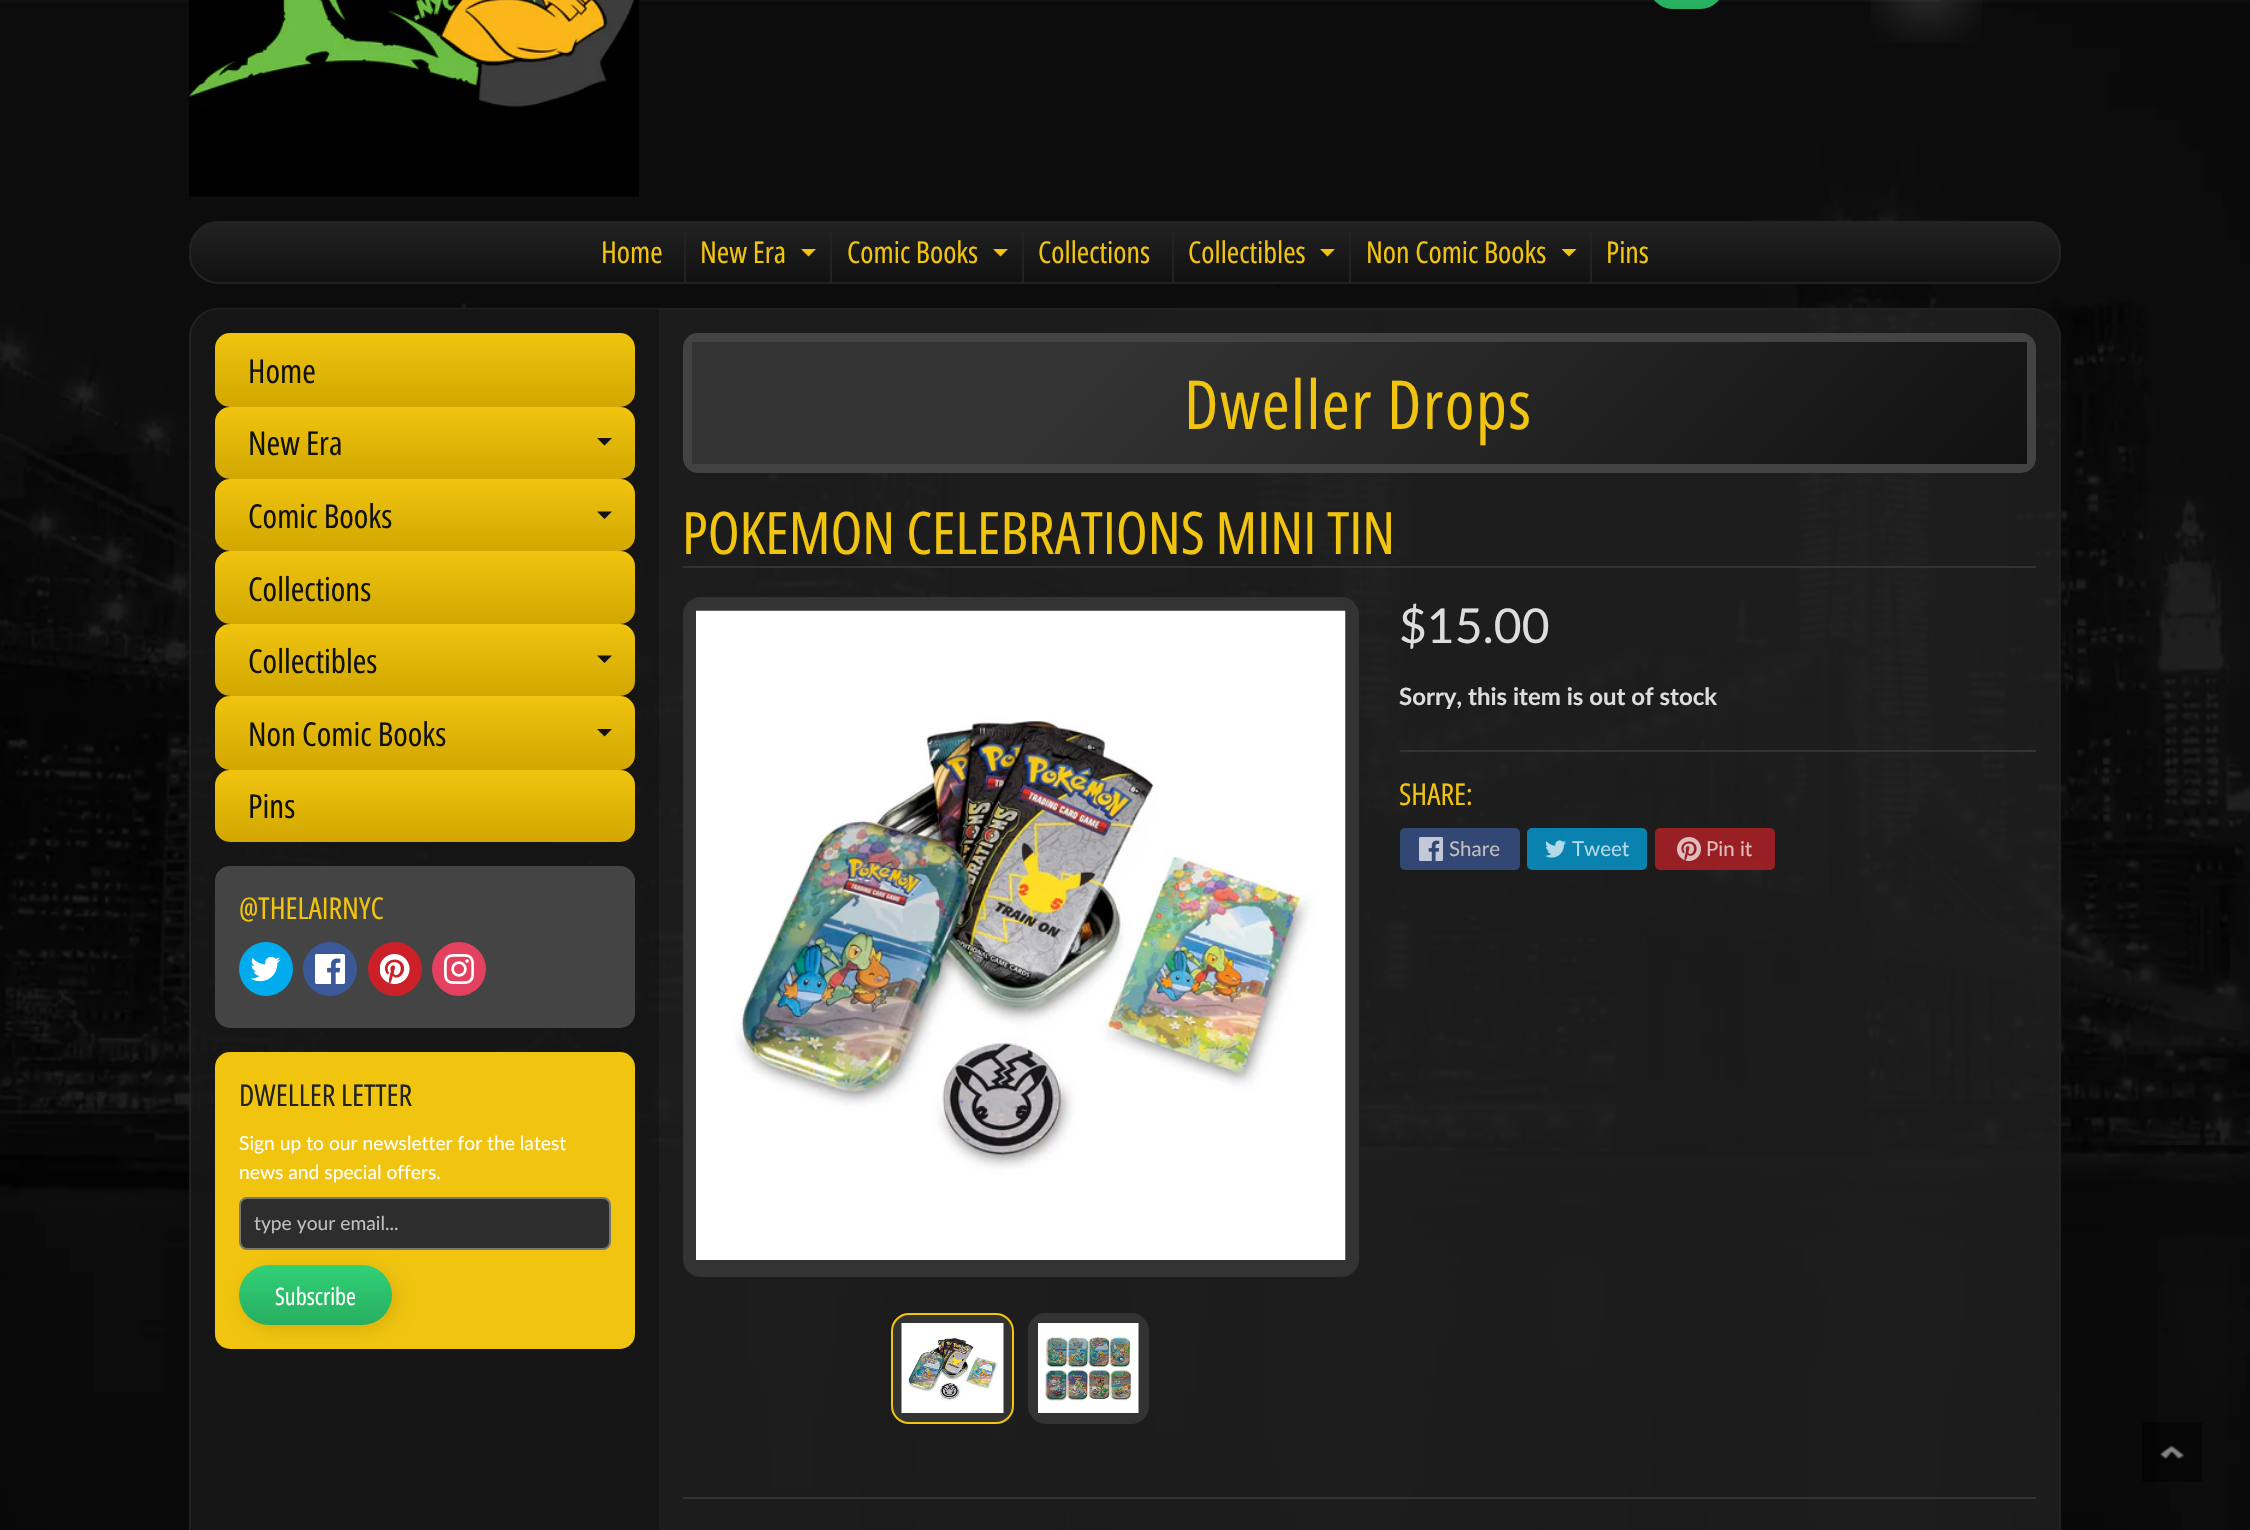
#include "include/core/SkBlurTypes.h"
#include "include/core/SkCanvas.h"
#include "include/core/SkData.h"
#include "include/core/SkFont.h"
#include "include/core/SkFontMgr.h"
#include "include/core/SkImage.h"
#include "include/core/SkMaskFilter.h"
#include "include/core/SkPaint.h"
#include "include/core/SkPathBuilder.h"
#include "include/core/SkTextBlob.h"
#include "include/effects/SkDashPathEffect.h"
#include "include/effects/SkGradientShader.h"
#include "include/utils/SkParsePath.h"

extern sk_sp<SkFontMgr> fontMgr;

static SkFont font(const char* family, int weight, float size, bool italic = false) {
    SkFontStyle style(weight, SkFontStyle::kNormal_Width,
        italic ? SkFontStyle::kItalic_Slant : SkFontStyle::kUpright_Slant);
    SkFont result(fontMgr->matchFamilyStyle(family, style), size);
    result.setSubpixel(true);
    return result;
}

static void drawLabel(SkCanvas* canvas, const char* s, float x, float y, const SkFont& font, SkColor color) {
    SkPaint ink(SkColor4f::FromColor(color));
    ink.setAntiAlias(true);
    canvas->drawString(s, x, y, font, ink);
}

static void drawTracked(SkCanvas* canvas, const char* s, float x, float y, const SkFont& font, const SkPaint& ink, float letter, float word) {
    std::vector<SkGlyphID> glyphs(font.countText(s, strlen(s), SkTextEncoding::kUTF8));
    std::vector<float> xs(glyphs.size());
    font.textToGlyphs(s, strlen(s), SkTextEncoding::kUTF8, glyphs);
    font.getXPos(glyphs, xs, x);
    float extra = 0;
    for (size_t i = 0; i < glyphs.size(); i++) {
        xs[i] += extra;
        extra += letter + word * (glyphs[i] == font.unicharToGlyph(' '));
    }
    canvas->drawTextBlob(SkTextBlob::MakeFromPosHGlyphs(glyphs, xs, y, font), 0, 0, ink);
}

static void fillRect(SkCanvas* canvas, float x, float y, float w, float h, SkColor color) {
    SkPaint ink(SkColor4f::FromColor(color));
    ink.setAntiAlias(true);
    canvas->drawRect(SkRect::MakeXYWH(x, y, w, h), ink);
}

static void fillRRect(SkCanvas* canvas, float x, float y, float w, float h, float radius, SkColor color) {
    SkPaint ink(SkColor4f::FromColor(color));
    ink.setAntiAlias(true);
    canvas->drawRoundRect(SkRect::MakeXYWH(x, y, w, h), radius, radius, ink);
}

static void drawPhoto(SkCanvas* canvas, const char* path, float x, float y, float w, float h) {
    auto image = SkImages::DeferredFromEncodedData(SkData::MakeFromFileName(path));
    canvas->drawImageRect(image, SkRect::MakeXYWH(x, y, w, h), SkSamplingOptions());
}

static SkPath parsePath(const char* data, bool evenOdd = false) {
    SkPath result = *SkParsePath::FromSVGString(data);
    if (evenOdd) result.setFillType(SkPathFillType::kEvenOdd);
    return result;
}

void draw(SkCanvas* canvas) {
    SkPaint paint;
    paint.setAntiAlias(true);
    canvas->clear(0xFFFFFFFF);
    drawPhoto(canvas, "assets/img1.png", 0, 0, 2250, 1530);
    drawPhoto(canvas, "assets/img2.png", 189, 0, 450, 197);
    {
        const SkColor colors[] = {0xFF32D177, 0xFF27AE60};
        const float stops[] = {0, 1};
        const SkPoint ends[] = {{1686, -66}, {1686, 9}};
        paint.setShader(SkGradientShader::MakeLinear(ends, colors, stops, 2, SkTileMode::kClamp));
        paint.setAlpha(255);
    }
    canvas->drawRoundRect(SkRect::MakeXYWH(1649, -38, 75, 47), 37.5f, 37.5f, paint);
    drawPhoto(canvas, "assets/img3.png", 1871, 0, 111, 43);
    canvas->save();
    canvas->clipPath(parsePath("M219 221H2031C2047.5 221 2061 234.5 2061 251V254C2061 270.5 2047.5 284 2031 284H219C202.5 284 189 270.5 189 254V251C189 234.5 202.5 221 219 221Z"), true);
    {
        const SkColor colors[] = {0xFF222222, 0xFF111111};
        const float stops[] = {0, 1};
        const SkPoint ends[] = {{1125, 222}, {1125, 282}};
        paint.setShader(SkGradientShader::MakeLinear(ends, colors, stops, 2, SkTileMode::kClamp));
        paint.setAlpha(255);
    }
    canvas->drawRect(SkRect::MakeXYWH(189, 222, 1872, 60), paint);
    canvas->restore();
    paint.setStroke(true);
    paint.setStrokeWidth(2);
    paint.setShader(nullptr);
    paint.setColor(0xFF222222);
    canvas->drawRoundRect(SkRect::MakeXYWH(190, 222, 1870, 61), 29, 29, paint);
    SkFont font1 = font("Open Sans Condensed", 400, 30);
    drawLabel(canvas, "Home", 601, 263, font1, 0xFFF1C40F);
    fillRect(canvas, 684, 231, 2, 51, 0xFF222222);
    drawLabel(canvas, "New Era", 700, 263, font1, 0xFFF1C40F);
    paint.setStroke(false);
    paint.setColor(0xFFF1C40F);
    canvas->drawPath(parsePath("M801 249H816L808.5 256.5Z"), paint);
    fillRect(canvas, 830, 231, 2, 51, 0xFF222222);
    drawLabel(canvas, "Comic Books", 847, 263, font1, 0xFFF1C40F);
    canvas->drawPath(parsePath("M993 249H1008L1000.5 256.5Z"), paint);
    fillRect(canvas, 1022, 231, 2, 51, 0xFF222222);
    drawLabel(canvas, "Collections", 1038, 263, font1, 0xFFF1C40F);
    fillRect(canvas, 1172, 231, 2, 51, 0xFF222222);
    drawLabel(canvas, "Collectibles", 1188, 263, font1, 0xFFF1C40F);
    canvas->drawPath(parsePath("M1320 249H1335L1327.5 256.5Z"), paint);
    fillRect(canvas, 1349, 231, 2, 51, 0xFF222222);
    drawLabel(canvas, "Non Comic Books", 1366, 263, font1, 0xFFF1C40F);
    canvas->drawPath(parsePath("M1561.5 249H1576.5L1569 256.5Z"), paint);
    fillRect(canvas, 1590, 231, 2, 51, 0xFF222222);
    drawLabel(canvas, "Pins", 1606, 263, font1, 0xFFF1C40F);
    fillRRect(canvas, 189, 308, 1872, 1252, 30, 0xBF222222);
    paint.setStroke(true);
    paint.setColor(0xB3222222);
    canvas->drawRoundRect(SkRect::MakeXYWH(190, 309, 1870, 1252), 29, 29, paint);
    paint.setStroke(false);
    paint.setColor(0x40000000);
    canvas->drawPath(parsePath("M220 309H659V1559H220C204 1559 191 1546 191 1530V338C191 322 204 309 220 309Z"), paint);
    {
        const SkColor colors[] = {0xFFF1C40F, 0xFFD1A701};
        const float stops[] = {0, 1};
        const SkPoint ends[] = {{425, 333}, {425, 407}};
        paint.setShader(SkGradientShader::MakeLinear(ends, colors, stops, 2, SkTileMode::kClamp));
        paint.setAlpha(255);
    }
    canvas->drawRoundRect(SkRect::MakeXYWH(215, 333, 420, 74), 15, 15, paint);
    SkFont font2 = font("Open Sans Condensed", 400, 33);
    drawLabel(canvas, "Home", 248, 383, font2, 0xFF111111);
    {
        const SkColor colors[] = {0xFFF1C40F, 0xFFD1A701};
        const float stops[] = {0, 1};
        const SkPoint ends[] = {{425, 407}, {425, 479}};
        paint.setShader(SkGradientShader::MakeLinear(ends, colors, stops, 2, SkTileMode::kClamp));
        paint.setAlpha(255);
    }
    canvas->drawRoundRect(SkRect::MakeXYWH(215, 407, 420, 72), 15, 15, paint);
    drawLabel(canvas, "New Era", 248, 455, font2, 0xFF111111);
    paint.setShader(nullptr);
    paint.setColor(0xFF111111);
    canvas->drawPath(parsePath("M597 438H612L604.5 445.5Z"), paint);
    {
        const SkColor colors[] = {0xFFF1C40F, 0xFFD1A701};
        const float stops[] = {0, 1};
        const SkPoint ends[] = {{425, 479}, {425, 551}};
        paint.setShader(SkGradientShader::MakeLinear(ends, colors, stops, 2, SkTileMode::kClamp));
        paint.setAlpha(255);
    }
    canvas->drawRoundRect(SkRect::MakeXYWH(215, 479, 420, 72), 15, 15, paint);
    drawLabel(canvas, "Comic Books", 248, 528, font2, 0xFF111111);
    paint.setShader(nullptr);
    paint.setColor(0xFF111111);
    canvas->drawPath(parsePath("M597 511.5H612L604.5 519Z"), paint);
    {
        const SkColor colors[] = {0xFFF1C40F, 0xFFD1A701};
        const float stops[] = {0, 1};
        const SkPoint ends[] = {{425, 551}, {425, 624}};
        paint.setShader(SkGradientShader::MakeLinear(ends, colors, stops, 2, SkTileMode::kClamp));
        paint.setAlpha(255);
    }
    canvas->drawRoundRect(SkRect::MakeXYWH(215, 551, 420, 73), 15, 15, paint);
    drawLabel(canvas, "Collections", 248, 601, font2, 0xFF111111);
    {
        const SkColor colors[] = {0xFFF1C40F, 0xFFD1A701};
        const float stops[] = {0, 1};
        const SkPoint ends[] = {{425, 624}, {425, 696}};
        paint.setShader(SkGradientShader::MakeLinear(ends, colors, stops, 2, SkTileMode::kClamp));
        paint.setAlpha(255);
    }
    canvas->drawRoundRect(SkRect::MakeXYWH(215, 624, 420, 72), 15, 15, paint);
    drawLabel(canvas, "Collectibles", 248, 673, font2, 0xFF111111);
    paint.setShader(nullptr);
    paint.setColor(0xFF111111);
    canvas->drawPath(parsePath("M597 655.5H612L604.5 663Z"), paint);
    {
        const SkColor colors[] = {0xFFF1C40F, 0xFFD1A701};
        const float stops[] = {0, 1};
        const SkPoint ends[] = {{425, 696}, {425, 770}};
        paint.setShader(SkGradientShader::MakeLinear(ends, colors, stops, 2, SkTileMode::kClamp));
        paint.setAlpha(255);
    }
    canvas->drawRoundRect(SkRect::MakeXYWH(215, 696, 420, 74), 15, 15, paint);
    drawLabel(canvas, "Non Comic Books", 248, 746, font2, 0xFF111111);
    paint.setShader(nullptr);
    paint.setColor(0xFF111111);
    canvas->drawPath(parsePath("M597 729H612L604.5 736.5Z"), paint);
    {
        const SkColor colors[] = {0xFFF1C40F, 0xFFD1A701};
        const float stops[] = {0, 1};
        const SkPoint ends[] = {{425, 770}, {425, 842}};
        paint.setShader(SkGradientShader::MakeLinear(ends, colors, stops, 2, SkTileMode::kClamp));
        paint.setAlpha(255);
    }
    canvas->drawRoundRect(SkRect::MakeXYWH(215, 770, 420, 72), 15, 15, paint);
    drawLabel(canvas, "Pins", 248, 818, font2, 0xFF111111);
    fillRRect(canvas, 215, 866, 420, 162, 15, 0xFF444444);
    drawLabel(canvas, "@THELAIRNYC", 239, 919, font1, 0xFFF1C40F);
    paint.setShader(nullptr);
    paint.setColor(0xFF00ACED);
    canvas->drawCircle(266, 969, 27, paint);
    drawPhoto(canvas, "assets/img4.png", 251, 956, 30, 26);
    paint.setColor(0xFF3B5998);
    canvas->drawCircle(330, 969, 27, paint);
    drawPhoto(canvas, "assets/img5.png", 315, 954, 30, 30);
    paint.setColor(0xFFCB2027);
    canvas->drawCircle(395, 969, 27, paint);
    drawPhoto(canvas, "assets/img6.png", 380, 954, 30, 30);
    paint.setColor(0xFFE4405F);
    canvas->drawCircle(459, 969, 27, paint);
    drawPhoto(canvas, "assets/img7.png", 444, 954, 30, 30);
    fillRRect(canvas, 215, 1052, 420, 297, 15, 0xFFF1C40F);
    drawLabel(canvas, "DWELLER LETTER", 239, 1106, font1, 0xFF222222);
    SkFont font3 = font("Lato", 400, 19.25f);
    drawLabel(canvas, "Sign up to our newsletter for the latest", 239, 1150, font3, 0xFFFFFFFF);
    drawLabel(canvas, "news and special offers.", 239, 1179, font3, 0xFFFFFFFF);
    paint.setColor(0xFF2D2D2D);
    canvas->drawRoundRect(SkRect::MakeXYWH(240, 1198, 370, 51), 7, 7, paint);
    paint.setStroke(true);
    paint.setColor(0xFF767676);
    canvas->drawRoundRect(SkRect::MakeXYWH(240, 1198, 370, 51), 7, 7, paint);
    drawLabel(canvas, "type your email...", 254, 1230, font3, 0xFFC0BFBF);
    paint.setStroke(false);
    paint.setColor(0x1A000000);
    paint.setMaskFilter(SkMaskFilter::MakeBlur(kNormal_SkBlurStyle, 9));
    canvas->drawRoundRect(SkRect::MakeXYWH(243, 1269, 153, 60), 30, 30, paint);
    paint.setMaskFilter(nullptr);
    {
        const SkColor colors[] = {0xFF32D177, 0xFF27AE60};
        const float stops[] = {0, 1};
        const SkPoint ends[] = {{315, 1265}, {315, 1325}};
        paint.setShader(SkGradientShader::MakeLinear(ends, colors, stops, 2, SkTileMode::kClamp));
        paint.setAlpha(255);
    }
    canvas->drawRoundRect(SkRect::MakeXYWH(239, 1265, 153, 60), 30, 30, paint);
    SkFont font4 = font("Open Sans Condensed", 400, 24);
    drawLabel(canvas, "Subscribe", 275, 1305, font4, 0xFFFFFFFF);
    fillRRect(canvas, 683, 333, 1353, 140, 15, 0xFF434343);
    {
        const SkColor colors[] = {0xFF333333, 0xFF111111};
        const float stops[] = {0.3f, 1};
        const SkPoint ends[] = {{995, 39}, {1723, 767}};
        paint.setShader(SkGradientShader::MakeLinear(ends, colors, stops, 2, SkTileMode::kClamp));
        paint.setAlpha(255);
    }
    canvas->drawRect(SkRect::MakeXYWH(692, 342, 1335, 122), paint);
    SkFont font5 = font("Open Sans Condensed", 400, 67.5f);
    paint.setShader(nullptr);
    paint.setColor(0xFFF1C40F);
    drawTracked(canvas, "Dweller Drops", 1184, 429, font5, paint, 1.5f, 0);
    fillRect(canvas, 683, 566, 1353, 2, 0xFF333333);
    SkFont font6 = font("Open Sans Condensed", 400, 58.6f);
    drawLabel(canvas, "POKEMON CELEBRATIONS MINI TIN", 682, 554, font6, 0xFFF1C40F);
    fillRRect(canvas, 683, 597, 676, 680, 18, 0xFF333333);
    drawPhoto(canvas, "assets/img8.png", 696, 610, 650, 650);
    paint.setColor(0xFF333333);
    canvas->drawRoundRect(SkRect::MakeXYWH(892, 1314, 121, 109), 17, 17, paint);
    paint.setStroke(true);
    paint.setColor(0xFFF1C40F);
    canvas->drawRoundRect(SkRect::MakeXYWH(892, 1314, 121, 109), 17, 17, paint);
    drawPhoto(canvas, "assets/img9.png", 901, 1323, 103, 90);
    paint.setStroke(false);
    paint.setColor(0xFF333333);
    canvas->drawRoundRect(SkRect::MakeXYWH(1029, 1314, 119, 109), 17, 17, paint);
    paint.setStroke(true);
    canvas->drawRoundRect(SkRect::MakeXYWH(1029, 1314, 119, 109), 17, 17, paint);
    drawPhoto(canvas, "assets/img10.png", 1038, 1323, 101, 90);
    SkFont font7 = font("Lato", 400, 48);
    drawLabel(canvas, "$15.00", 1399, 643, font7, 0xFFDDDDDD);
    SkFont font8 = font("Lato", 700, 24);
    drawLabel(canvas, "Sorry, this item is out of stock", 1399, 705, font8, 0xFFDDDDDD);
    fillRect(canvas, 1400, 750, 636, 2, 0xFF333333);
    drawLabel(canvas, "SHARE:", 1399, 805, font1, 0xFFF1C40F);
    fillRRect(canvas, 1400, 828, 120, 42, 5, 0xB33B5998);
    drawPhoto(canvas, "assets/img11.png", 1419, 837, 24, 24);
    SkFont font9 = font("Lato", 400, 20.5f);
    drawLabel(canvas, "Share", 1449, 856, font9, 0xFFC0BFBF);
    fillRRect(canvas, 1527, 828, 120, 42, 5, 0xB300ACED);
    drawPhoto(canvas, "assets/img12.png", 1545, 840, 21, 18);
    drawLabel(canvas, "Tweet", 1572, 856, font9, 0xFFB5D9E7);
    fillRRect(canvas, 1655, 828, 120, 42, 5, 0xB3CC2127);
    drawPhoto(canvas, "assets/img13.png", 1677, 837, 24, 24);
    drawLabel(canvas, "Pin it", 1706, 856, font9, 0xFFE0BCBD);
    fillRect(canvas, 683, 1497, 1353, 2, 0xFF333333);
    drawPhoto(canvas, "assets/img14.png", 2142, 1422, 60, 60);
}
